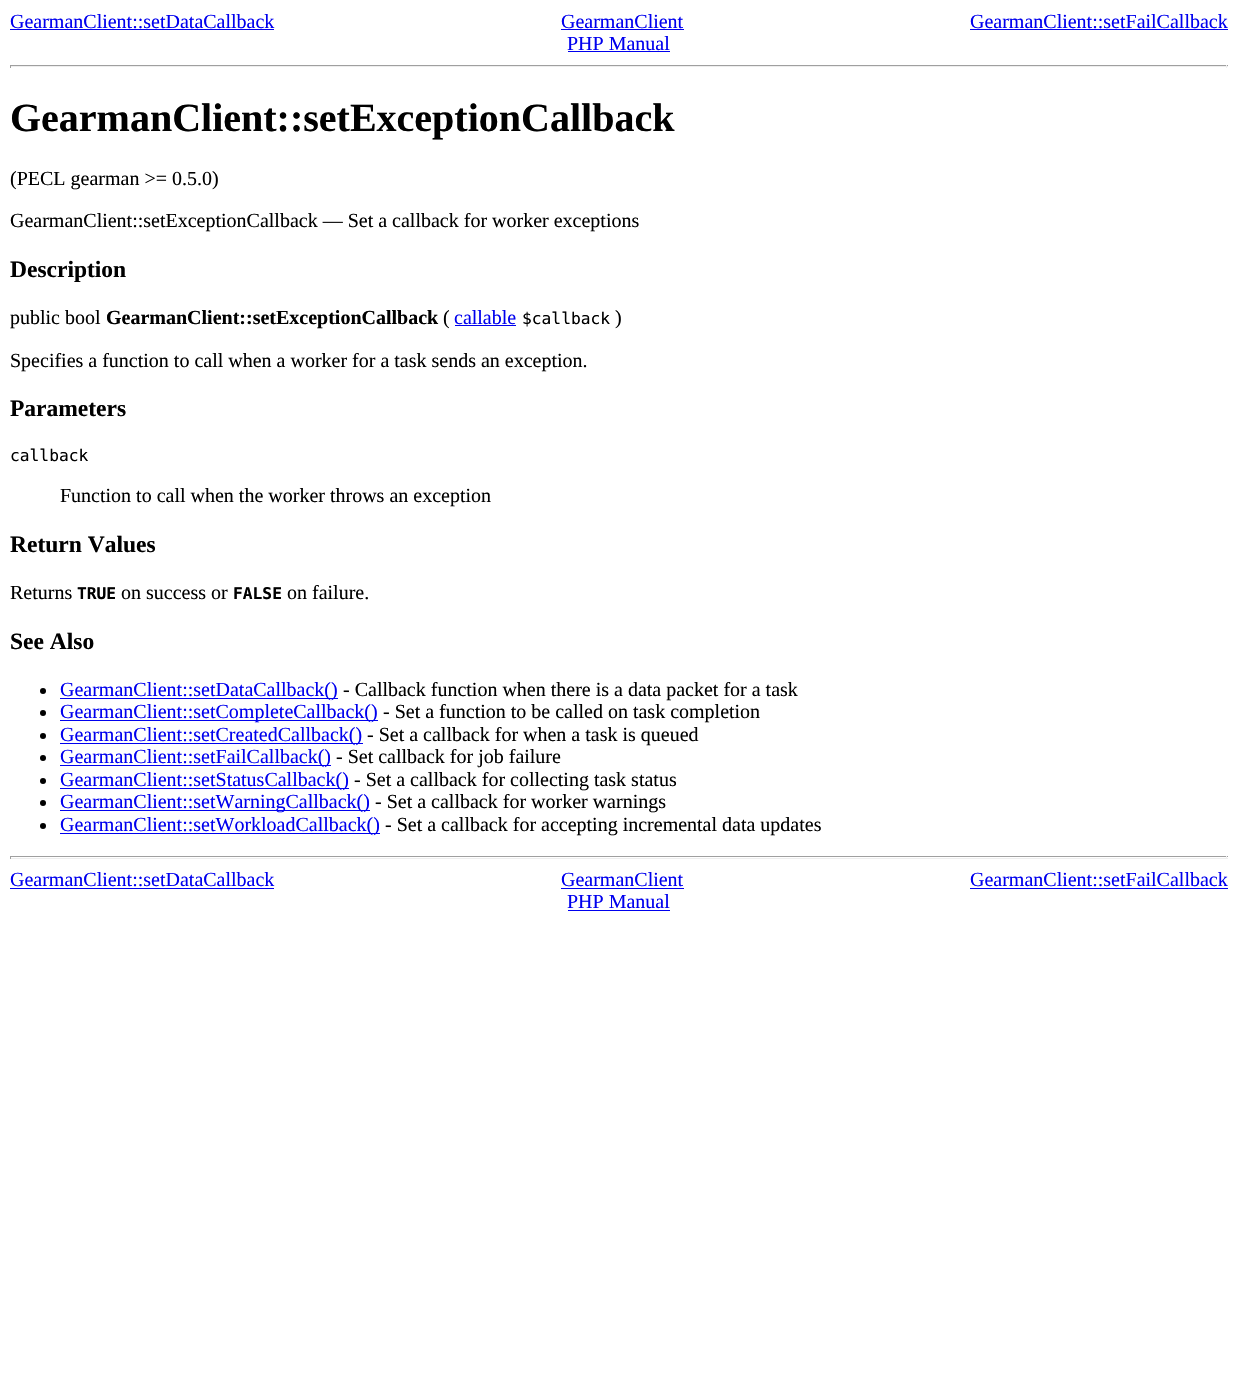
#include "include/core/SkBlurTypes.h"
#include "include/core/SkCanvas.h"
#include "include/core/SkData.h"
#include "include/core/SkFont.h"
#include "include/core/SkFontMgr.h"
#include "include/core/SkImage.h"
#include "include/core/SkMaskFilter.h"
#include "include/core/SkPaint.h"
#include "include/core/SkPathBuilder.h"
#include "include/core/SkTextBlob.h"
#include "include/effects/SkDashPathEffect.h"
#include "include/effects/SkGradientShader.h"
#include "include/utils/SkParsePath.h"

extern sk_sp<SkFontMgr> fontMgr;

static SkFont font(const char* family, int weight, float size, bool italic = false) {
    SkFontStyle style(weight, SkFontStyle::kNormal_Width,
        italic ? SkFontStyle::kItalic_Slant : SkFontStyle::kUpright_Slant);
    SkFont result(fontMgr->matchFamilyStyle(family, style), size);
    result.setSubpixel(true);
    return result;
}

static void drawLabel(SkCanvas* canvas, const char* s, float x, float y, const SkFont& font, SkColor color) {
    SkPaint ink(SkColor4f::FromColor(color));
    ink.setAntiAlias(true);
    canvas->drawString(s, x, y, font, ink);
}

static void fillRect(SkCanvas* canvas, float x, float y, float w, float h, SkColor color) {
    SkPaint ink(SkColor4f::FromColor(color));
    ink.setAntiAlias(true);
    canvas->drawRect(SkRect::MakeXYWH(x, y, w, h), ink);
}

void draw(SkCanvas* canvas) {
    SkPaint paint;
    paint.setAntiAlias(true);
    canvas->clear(0xFFFFFFFF);
    SkFont font1 = font("Liberation Serif", 400, 20);
    drawLabel(canvas, "GearmanClient::setDataCallback", 10, 28, font1, 0xFF0000EE);
    fillRect(canvas, 10, 29, 264, 1, 0xFF0000EE);
    drawLabel(canvas, "GearmanClient", 561, 28, font1, 0xFF0000EE);
    fillRect(canvas, 561, 29, 123, 1, 0xFF0000EE);
    drawLabel(canvas, "GearmanClient::setFailCallback", 970, 28, font1, 0xFF0000EE);
    fillRect(canvas, 970, 29, 258, 1, 0xFF0000EE);
    drawLabel(canvas, "PHP Manual", 567, 50, font1, 0xFF0000EE);
    fillRect(canvas, 568, 51, 102, 1, 0xFF0000EE);
    fillRect(canvas, 10, 65, 1218, 1, 0xFF9F9F9F);
    fillRect(canvas, 1226, 65, 1, 3, 0xFFEEEEEE);
    fillRect(canvas, 10, 66, 1218, 1, 0xFFEEEEEE);
    fillRect(canvas, 10, 65, 1, 3, 0xFF9F9F9F);
    SkFont font2 = font("Liberation Serif", 700, 40);
    drawLabel(canvas, "GearmanClient::setExceptionCallback", 10, 131, font2, 0xFF000000);
    drawLabel(canvas, "(PECL gearman >= 0.5.0)", 10, 185, font1, 0xFF000000);
    drawLabel(canvas, "GearmanClient::setExceptionCallback — Set a callback for worker exceptions", 10, 227, font1, 0xFF000000);
    SkFont font3 = font("Liberation Serif", 700, 23.5f);
    drawLabel(canvas, "Description", 10, 277, font3, 0xFF000000);
    drawLabel(canvas, "public bool", 10, 324, font1, 0xFF000000);
    SkFont font4 = font("Liberation Serif", 700, 20);
    drawLabel(canvas, "GearmanClient::setExceptionCallback", 106, 324, font4, 0xFF000000);
    drawLabel(canvas, "(", 443, 324, font1, 0xFF000000);
    drawLabel(canvas, "callable", 454, 324, font1, 0xFF0000EE);
    fillRect(canvas, 455, 325, 61, 1, 0xFF0000EE);
    SkFont font5 = font("DejaVu Sans Mono", 400, 16.25f);
    drawLabel(canvas, "$callback", 522, 324, font5, 0xFF000000);
    drawLabel(canvas, ")", 615, 324, font1, 0xFF000000);
    drawLabel(canvas, "Specifies a function to call when a worker for a task sends an exception.", 10, 367, font1, 0xFF000000);
    drawLabel(canvas, "Parameters", 10, 416, font3, 0xFF000000);
    drawLabel(canvas, "callback", 10, 461, font5, 0xFF000000);
    drawLabel(canvas, "Function to call when the worker throws an exception", 60, 502, font1, 0xFF000000);
    drawLabel(canvas, "Return Values", 10, 552, font3, 0xFF000000);
    drawLabel(canvas, "Returns", 10, 599, font1, 0xFF000000);
    SkFont font6 = font("DejaVu Sans Mono", 700, 16.25f);
    drawLabel(canvas, "TRUE", 77, 599, font6, 0xFF000000);
    drawLabel(canvas, "on success or", 121, 599, font1, 0xFF000000);
    drawLabel(canvas, "FALSE", 233, 599, font6, 0xFF000000);
    drawLabel(canvas, "on failure.", 287, 599, font1, 0xFF000000);
    drawLabel(canvas, "See Also", 10, 649, font3, 0xFF000000);
    paint.setColor(0xFF000000);
    canvas->drawCircle(43, 691, 3, paint);
    fillRect(canvas, 60, 698, 278, 1, 0xFF0000EE);
    drawLabel(canvas, "GearmanClient::setDataCallback()", 60, 696, font1, 0xFF0000EE);
    drawLabel(canvas, "- Callback function when there is a data packet for a task", 343, 696, font1, 0xFF000000);
    canvas->drawCircle(43, 713, 3, paint);
    fillRect(canvas, 60, 720, 318, 1, 0xFF0000EE);
    drawLabel(canvas, "GearmanClient::setCompleteCallback()", 60, 718, font1, 0xFF0000EE);
    drawLabel(canvas, "- Set a function to be called on task completion", 383, 718, font1, 0xFF000000);
    canvas->drawCircle(43, 736, 3, paint);
    fillRect(canvas, 60, 743, 303, 1, 0xFF0000EE);
    drawLabel(canvas, "GearmanClient::setCreatedCallback()", 60, 741, font1, 0xFF0000EE);
    drawLabel(canvas, "- Set a callback for when a task is queued", 367, 741, font1, 0xFF000000);
    canvas->drawCircle(43, 758, 3, paint);
    fillRect(canvas, 60, 765, 271, 1, 0xFF0000EE);
    drawLabel(canvas, "GearmanClient::setFailCallback()", 60, 763, font1, 0xFF0000EE);
    drawLabel(canvas, "- Set callback for job failure", 336, 763, font1, 0xFF000000);
    canvas->drawCircle(43, 781, 3, paint);
    fillRect(canvas, 60, 788, 289, 1, 0xFF0000EE);
    drawLabel(canvas, "GearmanClient::setStatusCallback()", 60, 786, font1, 0xFF0000EE);
    drawLabel(canvas, "- Set a callback for collecting task status", 354, 786, font1, 0xFF000000);
    canvas->drawCircle(43, 803, 3, paint);
    fillRect(canvas, 60, 810, 310, 1, 0xFF0000EE);
    drawLabel(canvas, "GearmanClient::setWarningCallback()", 60, 808, font1, 0xFF0000EE);
    drawLabel(canvas, "- Set a callback for worker warnings", 375, 808, font1, 0xFF000000);
    canvas->drawCircle(43, 826, 3, paint);
    fillRect(canvas, 60, 833, 320, 1, 0xFF0000EE);
    drawLabel(canvas, "GearmanClient::setWorkloadCallback()", 60, 831, font1, 0xFF0000EE);
    drawLabel(canvas, "- Set a callback for accepting incremental data updates", 385, 831, font1, 0xFF000000);
    fillRect(canvas, 10, 856, 1218, 1, 0xFF9F9F9F);
    fillRect(canvas, 1226, 856, 1, 3, 0xFFEEEEEE);
    fillRect(canvas, 10, 858, 1218, 1, 0xFFEEEEEE);
    fillRect(canvas, 10, 856, 1, 3, 0xFF9F9F9F);
    drawLabel(canvas, "GearmanClient::setDataCallback", 10, 886, font1, 0xFF0000EE);
    fillRect(canvas, 10, 888, 264, 1, 0xFF0000EE);
    drawLabel(canvas, "GearmanClient", 561, 886, font1, 0xFF0000EE);
    fillRect(canvas, 561, 888, 123, 1, 0xFF0000EE);
    drawLabel(canvas, "GearmanClient::setFailCallback", 970, 886, font1, 0xFF0000EE);
    fillRect(canvas, 970, 888, 258, 1, 0xFF0000EE);
    drawLabel(canvas, "PHP Manual", 567, 908, font1, 0xFF0000EE);
    fillRect(canvas, 568, 910, 102, 1, 0xFF0000EE);
}
